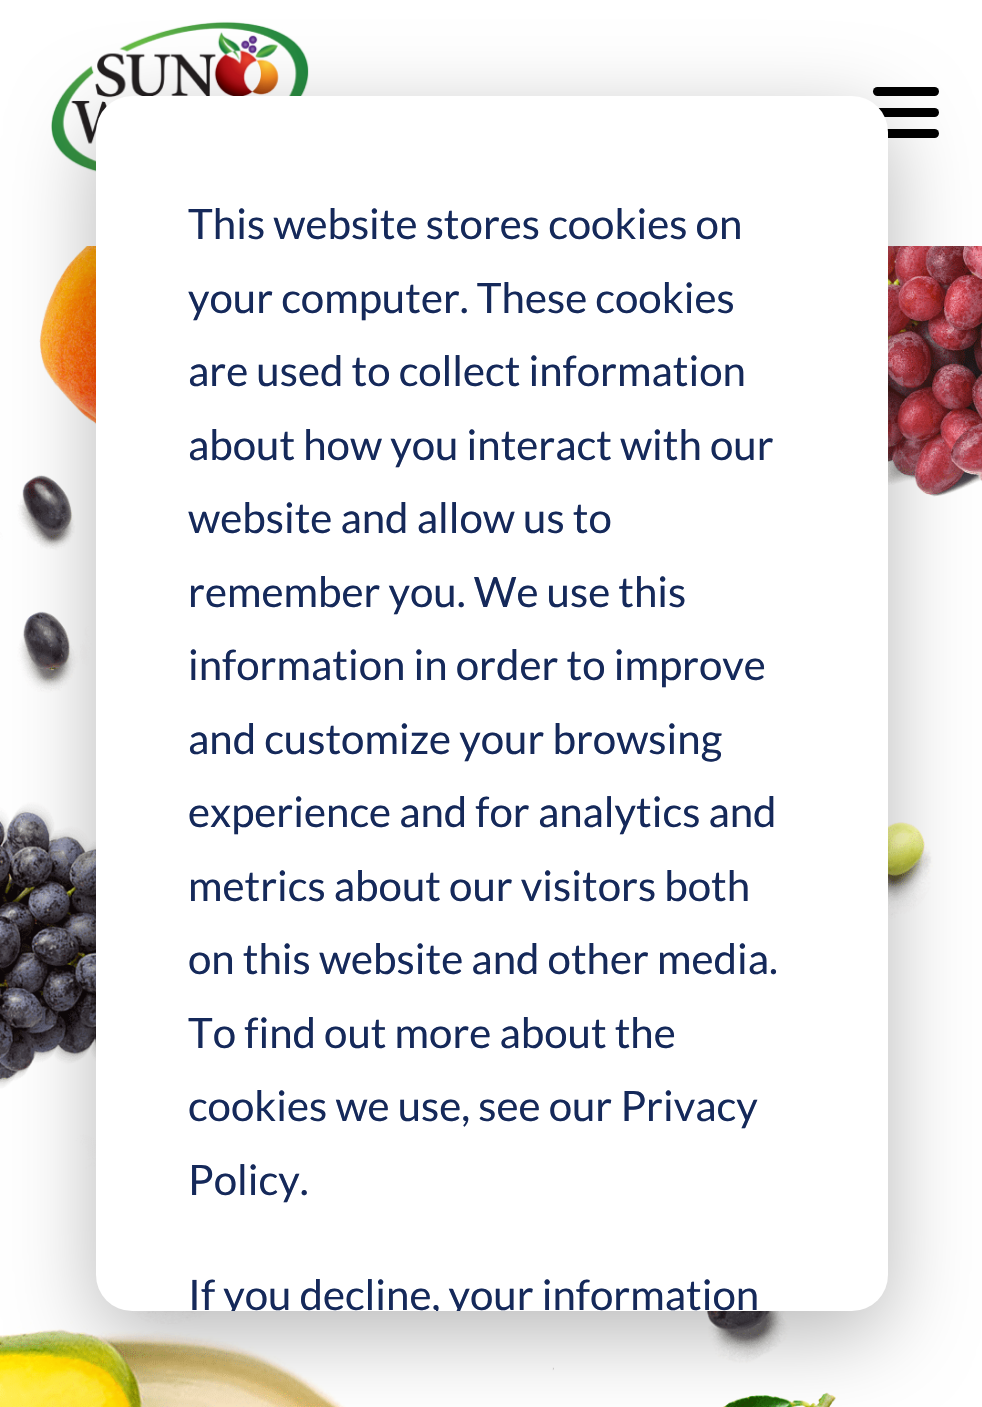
#include "include/core/SkBlurTypes.h"
#include "include/core/SkCanvas.h"
#include "include/core/SkData.h"
#include "include/core/SkFont.h"
#include "include/core/SkFontMgr.h"
#include "include/core/SkImage.h"
#include "include/core/SkMaskFilter.h"
#include "include/core/SkPaint.h"
#include "include/core/SkPathBuilder.h"
#include "include/core/SkTextBlob.h"
#include "include/effects/SkDashPathEffect.h"
#include "include/effects/SkGradientShader.h"
#include "include/utils/SkParsePath.h"

extern sk_sp<SkFontMgr> fontMgr;

static SkFont font(const char* family, int weight, float size, bool italic = false) {
    SkFontStyle style(weight, SkFontStyle::kNormal_Width,
        italic ? SkFontStyle::kItalic_Slant : SkFontStyle::kUpright_Slant);
    SkFont result(fontMgr->matchFamilyStyle(family, style), size);
    result.setSubpixel(true);
    return result;
}

static void drawLabel(SkCanvas* canvas, const char* s, float x, float y, const SkFont& font, SkColor color) {
    SkPaint ink(SkColor4f::FromColor(color));
    ink.setAntiAlias(true);
    canvas->drawString(s, x, y, font, ink);
}

static void fillRRect(SkCanvas* canvas, float x, float y, float w, float h, float radius, SkColor color) {
    SkPaint ink(SkColor4f::FromColor(color));
    ink.setAntiAlias(true);
    canvas->drawRoundRect(SkRect::MakeXYWH(x, y, w, h), radius, radius, ink);
}

static void drawPhoto(SkCanvas* canvas, const char* path, float x, float y, float w, float h) {
    auto image = SkImages::DeferredFromEncodedData(SkData::MakeFromFileName(path));
    canvas->drawImageRect(image, SkRect::MakeXYWH(x, y, w, h), SkSamplingOptions());
}

static SkPath parsePath(const char* data, bool evenOdd = false) {
    SkPath result = *SkParsePath::FromSVGString(data);
    if (evenOdd) result.setFillType(SkPathFillType::kEvenOdd);
    return result;
}

void draw(SkCanvas* canvas) {
    SkPaint paint;
    paint.setAntiAlias(true);
    canvas->clear(0xFFFFFFFF);
    drawPhoto(canvas, "assets/img1.png", 51, 21, 258, 156);
    fillRRect(canvas, 873, 87, 66, 9, 4.5f, 0xFF000000);
    fillRRect(canvas, 873, 108, 66, 9, 4.5f, 0xFF000000);
    fillRRect(canvas, 873, 129, 66, 9, 4.5f, 0xFF000000);
    drawPhoto(canvas, "assets/img2.png", 0, 246, 982, 1161);
    paint.setColor(0x47000000);
    paint.setMaskFilter(SkMaskFilter::MakeBlur(kNormal_SkBlurStyle, 42));
    canvas->drawRoundRect(SkRect::MakeXYWH(96, 120, 792, 1215), 36, 36, paint);
    paint.setMaskFilter(nullptr);
    fillRRect(canvas, 96, 96, 792, 1215, 36, 0xFFFFFFFF);
    SkFont font1 = font("Lato", 400, 42);
    drawLabel(canvas, "This website stores cookies on", 188, 239, font1, 0xFF15295A);
    drawLabel(canvas, "your computer. These cookies", 188, 313, font1, 0xFF15295A);
    drawLabel(canvas, "are used to collect information", 188, 386, font1, 0xFF15295A);
    drawLabel(canvas, "about how you interact with our", 188, 460, font1, 0xFF15295A);
    drawLabel(canvas, "website and allow us to", 188, 533, font1, 0xFF15295A);
    drawLabel(canvas, "remember you. We use this", 188, 607, font1, 0xFF15295A);
    drawLabel(canvas, "information in order to improve", 188, 680, font1, 0xFF15295A);
    drawLabel(canvas, "and customize your browsing", 188, 754, font1, 0xFF15295A);
    drawLabel(canvas, "experience and for analytics and", 188, 827, font1, 0xFF15295A);
    drawLabel(canvas, "metrics about our visitors both", 188, 901, font1, 0xFF15295A);
    drawLabel(canvas, "on this website and other media.", 188, 974, font1, 0xFF15295A);
    drawLabel(canvas, "To find out more about the", 188, 1048, font1, 0xFF15295A);
    drawLabel(canvas, "cookies we use, see our Privacy", 188, 1121, font1, 0xFF15295A);
    drawLabel(canvas, "Policy.", 188, 1195, font1, 0xFF15295A);
    canvas->save();
    canvas->clipPath(parsePath("M132 96H852C872 96 888 112 888 132V1275C888 1295 872 1311 852 1311H132C112 1311 96 1295 96 1275V132C96 112 112 96 132 96Z"), true);
    drawLabel(canvas, "If you decline, your information", 188, 1310, font1, 0xFF15295A);
    canvas->restore();
}
